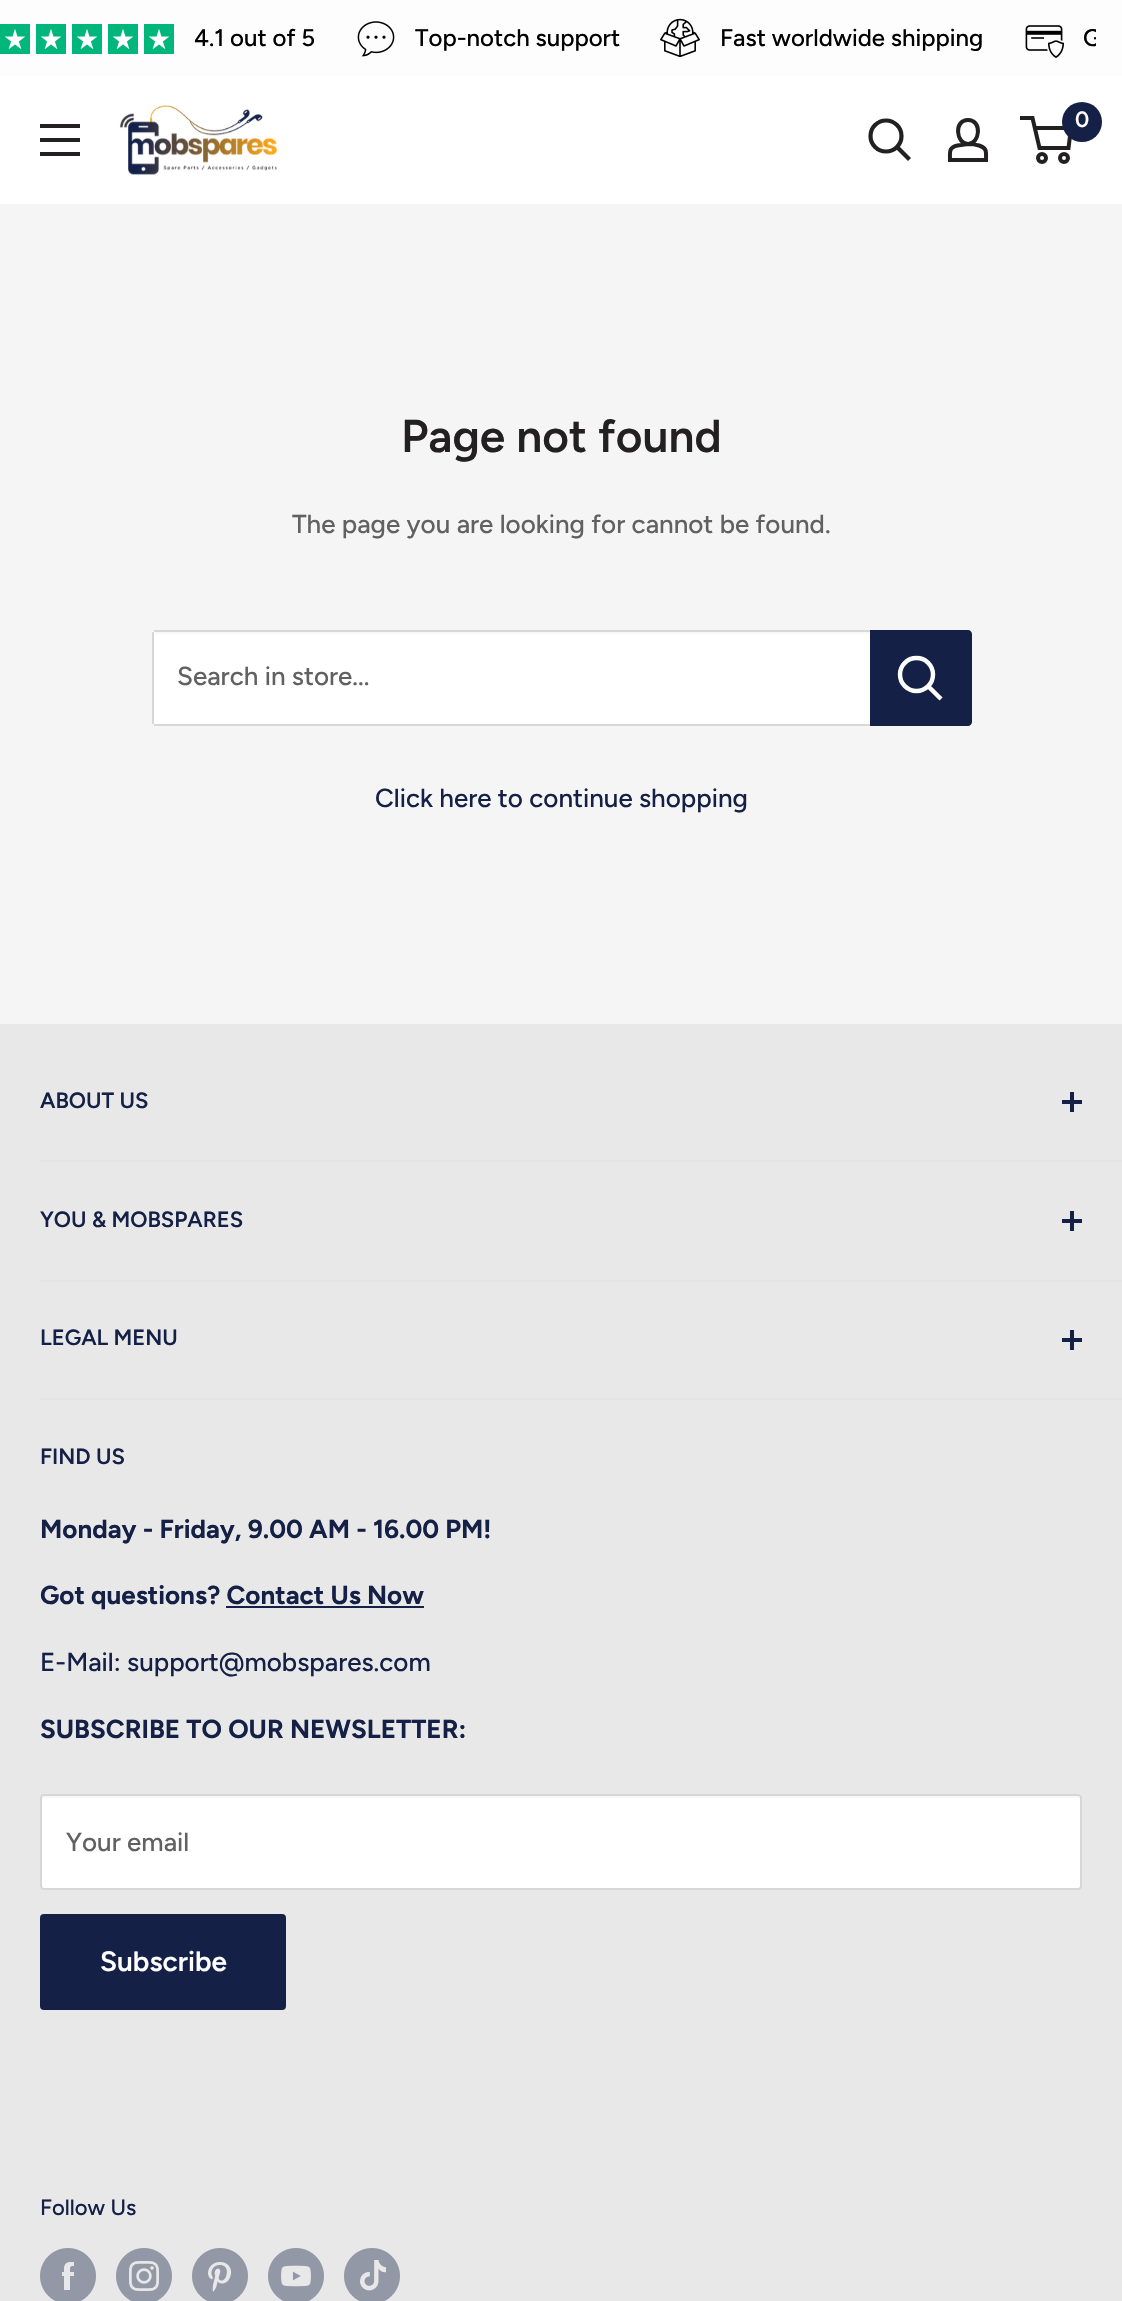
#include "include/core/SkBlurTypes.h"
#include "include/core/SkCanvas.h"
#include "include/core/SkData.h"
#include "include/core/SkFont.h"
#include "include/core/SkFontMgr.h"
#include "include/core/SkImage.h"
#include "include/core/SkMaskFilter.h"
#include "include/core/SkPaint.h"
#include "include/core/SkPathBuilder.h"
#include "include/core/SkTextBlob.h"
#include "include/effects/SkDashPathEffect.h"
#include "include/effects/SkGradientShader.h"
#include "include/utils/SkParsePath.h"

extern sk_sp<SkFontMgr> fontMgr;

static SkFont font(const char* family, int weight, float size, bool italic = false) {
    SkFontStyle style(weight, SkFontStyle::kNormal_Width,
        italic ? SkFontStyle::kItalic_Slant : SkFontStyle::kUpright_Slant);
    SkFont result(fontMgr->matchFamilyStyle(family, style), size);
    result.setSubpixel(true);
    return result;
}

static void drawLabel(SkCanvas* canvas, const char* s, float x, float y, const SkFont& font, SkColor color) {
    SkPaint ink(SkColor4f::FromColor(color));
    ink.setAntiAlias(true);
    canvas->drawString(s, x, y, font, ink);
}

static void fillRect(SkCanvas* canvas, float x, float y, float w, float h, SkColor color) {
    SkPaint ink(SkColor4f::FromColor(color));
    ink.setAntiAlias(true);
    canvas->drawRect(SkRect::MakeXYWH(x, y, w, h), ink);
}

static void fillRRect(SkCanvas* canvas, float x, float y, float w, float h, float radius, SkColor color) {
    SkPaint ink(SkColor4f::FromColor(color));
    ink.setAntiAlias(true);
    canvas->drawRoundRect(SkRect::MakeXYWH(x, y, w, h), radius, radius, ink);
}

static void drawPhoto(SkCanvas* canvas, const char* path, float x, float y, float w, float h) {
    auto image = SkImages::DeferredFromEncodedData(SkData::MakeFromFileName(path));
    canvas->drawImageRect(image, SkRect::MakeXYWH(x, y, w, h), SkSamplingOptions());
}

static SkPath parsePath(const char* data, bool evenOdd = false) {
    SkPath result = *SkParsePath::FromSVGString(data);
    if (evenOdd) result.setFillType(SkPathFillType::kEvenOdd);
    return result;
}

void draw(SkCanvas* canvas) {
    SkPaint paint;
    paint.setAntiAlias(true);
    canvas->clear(0xFFF5F5F5);
    fillRect(canvas, 0, 0, 1122, 76, 0xFFFDFDFD);
    drawPhoto(canvas, "assets/img1.png", 0, 24, 30, 30);
    drawPhoto(canvas, "assets/img1.png", 36, 24, 30, 30);
    drawPhoto(canvas, "assets/img1.png", 72, 24, 30, 30);
    drawPhoto(canvas, "assets/img1.png", 108, 24, 30, 30);
    drawPhoto(canvas, "assets/img1.png", 144, 24, 30, 30);
    SkFont font1 = font("Figtree", 500, 24);
    drawLabel(canvas, "4.1 out of 5", 194, 46, font1, 0xFF000000);
    drawPhoto(canvas, "assets/img2.png", 357, 21, 38, 36);
    drawLabel(canvas, "Top-notch support", 415, 46, font1, 0xFF000000);
    drawPhoto(canvas, "assets/img3.png", 660, 18, 40, 40);
    drawLabel(canvas, "Fast worldwide shipping", 720, 46, font1, 0xFF000000);
    drawPhoto(canvas, "assets/img4.png", 1025, 25, 39, 33);
    canvas->save();
    canvas->clipRect(SkRect::MakeXYWH(0, 18, 1096, 40));
    drawLabel(canvas, "G", 1083, 46, font1, 0xFF000000);
    canvas->restore();
    fillRect(canvas, 0, 76, 1122, 128, 0xFFFFFFFF);
    drawPhoto(canvas, "assets/img5.png", 120, 105, 157, 70);
    paint.setStroke(true);
    paint.setStrokeWidth(4.2f);
    paint.setStrokeCap(SkPaint::kSquare_Cap);
    paint.setColor(0xFF222021);
    canvas->drawPath(parsePath("M908 158L897.5 147.5"), paint);
    paint.setStrokeCap(SkPaint::kButt_Cap);
    canvas->drawCircle(886, 136, 15.5f, paint);
    paint.setStrokeWidth(4);
    canvas->drawPath(parsePath("M968 144C972 144 975.5 144.5 979 145.5C987.5 148 986 152.5 986 160H950C950 152 948.5 147.5 957.5 145.5ZM968 144C956 144 953.5 120 968 120C982.5 120 980 144 968 144Z"), paint);
    canvas->drawCircle(1042, 158, 4, paint);
    canvas->drawCircle(1064, 158, 4, paint);
    canvas->drawPath(parsePath("M1034.5 128H1071L1068.5 148H1039.5L1032.5 118H1020"), paint);
    paint.setStroke(false);
    paint.setColor(0xFF152046);
    canvas->drawCircle(1082, 122, 20, paint);
    SkFont font2 = font("Figtree", 600, 22);
    drawLabel(canvas, "0", 1075, 127, font2, 0xFFFFFFFF);
    paint.setColor(0xFF222021);
    canvas->drawPath(parsePath("M40 152H80V156H40ZM40 124H80V128H40ZM40 138H80V142H40Z", true), paint);
    SkFont font3 = font("Figtree", 600, 46);
    drawLabel(canvas, "Page not found", 401, 452, font3, 0xFF222021);
    SkFont font4 = font("Figtree", 500, 26);
    drawLabel(canvas, "The page you are looking for cannot be found.", 292, 533, font4, 0xFF616161);
    paint.setColor(0xFFFFFFFF);
    canvas->drawPath(parsePath("M156 630H870V726H156C154 726 152 724 152 722V634C152 632 154 630 156 630Z"), paint);
    paint.setColor(0xFFF8F8F8);
    canvas->drawPath(parsePath("M156 634H870V632H156L154 633V636C154 635 155 634 156 634Z"), paint);
    fillRect(canvas, 154, 630, 716, 2, 0xFFD7D7D7);
    fillRect(canvas, 154, 724, 716, 2, 0xFFD7D7D7);
    fillRect(canvas, 152, 632, 2, 92, 0xFFD7D7D7);
    drawLabel(canvas, "Search in store...", 177, 685, font4, 0xFF616161);
    paint.setColor(0xFF152046);
    canvas->drawPath(parsePath("M870 630H968C970 630 972 632 972 634V722C972 724 970 726 968 726H870Z"), paint);
    paint.setStroke(true);
    paint.setStrokeWidth(4.4f);
    paint.setStrokeCap(SkPaint::kSquare_Cap);
    paint.setColor(0xFFFFFFFF);
    canvas->drawPath(parsePath("M939.5 697.5L928.5 686.5"), paint);
    paint.setStrokeCap(SkPaint::kButt_Cap);
    canvas->drawCircle(916.5f, 674.5f, 16.5f, paint);
    drawLabel(canvas, "Click here to continue shopping", 375, 807, font4, 0xFF152046);
    fillRect(canvas, 0, 1024, 1122, 1277, 0xFFE8E8E8);
    fillRect(canvas, 40, 1160, 1082, 2, 0xFFE4E4E4);
    drawLabel(canvas, "ABOUT US", 40, 1108, font2, 0xFF152046);
    fillRect(canvas, 1070, 1092, 4, 20, 0xFF152046);
    fillRect(canvas, 1062, 1100, 20, 4, 0xFF152046);
    fillRect(canvas, 40, 1280, 1082, 2, 0xFFE4E4E4);
    drawLabel(canvas, "YOU & MOBSPARES", 40, 1227, font2, 0xFF152046);
    fillRect(canvas, 1070, 1211, 4, 20, 0xFF152046);
    fillRect(canvas, 1062, 1219, 20, 4, 0xFF152046);
    fillRect(canvas, 40, 1398, 1082, 2, 0xFFE4E4E4);
    drawLabel(canvas, "LEGAL MENU", 40, 1345, font2, 0xFF152046);
    fillRect(canvas, 1070, 1330, 4, 20, 0xFF152046);
    fillRect(canvas, 1062, 1338, 20, 4, 0xFF152046);
    drawLabel(canvas, "FIND US", 40, 1464, font2, 0xFF152046);
    SkFont font5 = font("Figtree", 700, 26);
    drawLabel(canvas, "Monday - Friday, 9.00 AM - 16.00 PM!", 40, 1538, font5, 0xFF152046);
    drawLabel(canvas, "Got questions? Contact Us Now", 40, 1604, font5, 0xFF152046);
    fillRect(canvas, 226, 1606, 198, 2, 0xFF152046);
    drawLabel(canvas, "E-Mail: support@mobspares.com", 40, 1671, font4, 0xFF152046);
    drawLabel(canvas, "SUBSCRIBE TO OUR NEWSLETTER:", 40, 1738, font5, 0xFF152046);
    fillRRect(canvas, 40, 1794, 1042, 96, 4, 0xFFFFFFFF);
    paint.setStroke(false);
    paint.setColor(0xFFF8F8F8);
    canvas->drawPath(parsePath("M44 1798H1078C1079 1798 1080 1799 1080 1800C1080 1798 1080 1796 1078 1796H44L42 1797V1800C42 1799 43 1798 44 1798Z"), paint);
    paint.setStroke(true);
    paint.setStrokeWidth(2);
    paint.setColor(0xFFD7D7D7);
    canvas->drawRoundRect(SkRect::MakeXYWH(41, 1795, 1040, 94), 3, 3, paint);
    drawLabel(canvas, "Your email", 66, 1851, font4, 0xFF616161);
    fillRRect(canvas, 40, 1914, 246, 96, 4, 0xFF152046);
    SkFont font6 = font("Figtree", 600, 28);
    drawLabel(canvas, "Subscribe", 100, 1971, font6, 0xFFFFFFFF);
    SkFont font7 = font("Figtree", 500, 22);
    drawLabel(canvas, "Follow Us", 40, 2215, font7, 0xFF152046);
    drawPhoto(canvas, "assets/img6.png", 40, 2248, 56, 53);
    drawPhoto(canvas, "assets/img7.png", 116, 2248, 56, 53);
    drawPhoto(canvas, "assets/img8.png", 192, 2248, 56, 53);
    drawPhoto(canvas, "assets/img9.png", 268, 2248, 56, 53);
    drawPhoto(canvas, "assets/img10.png", 344, 2248, 56, 53);
}
